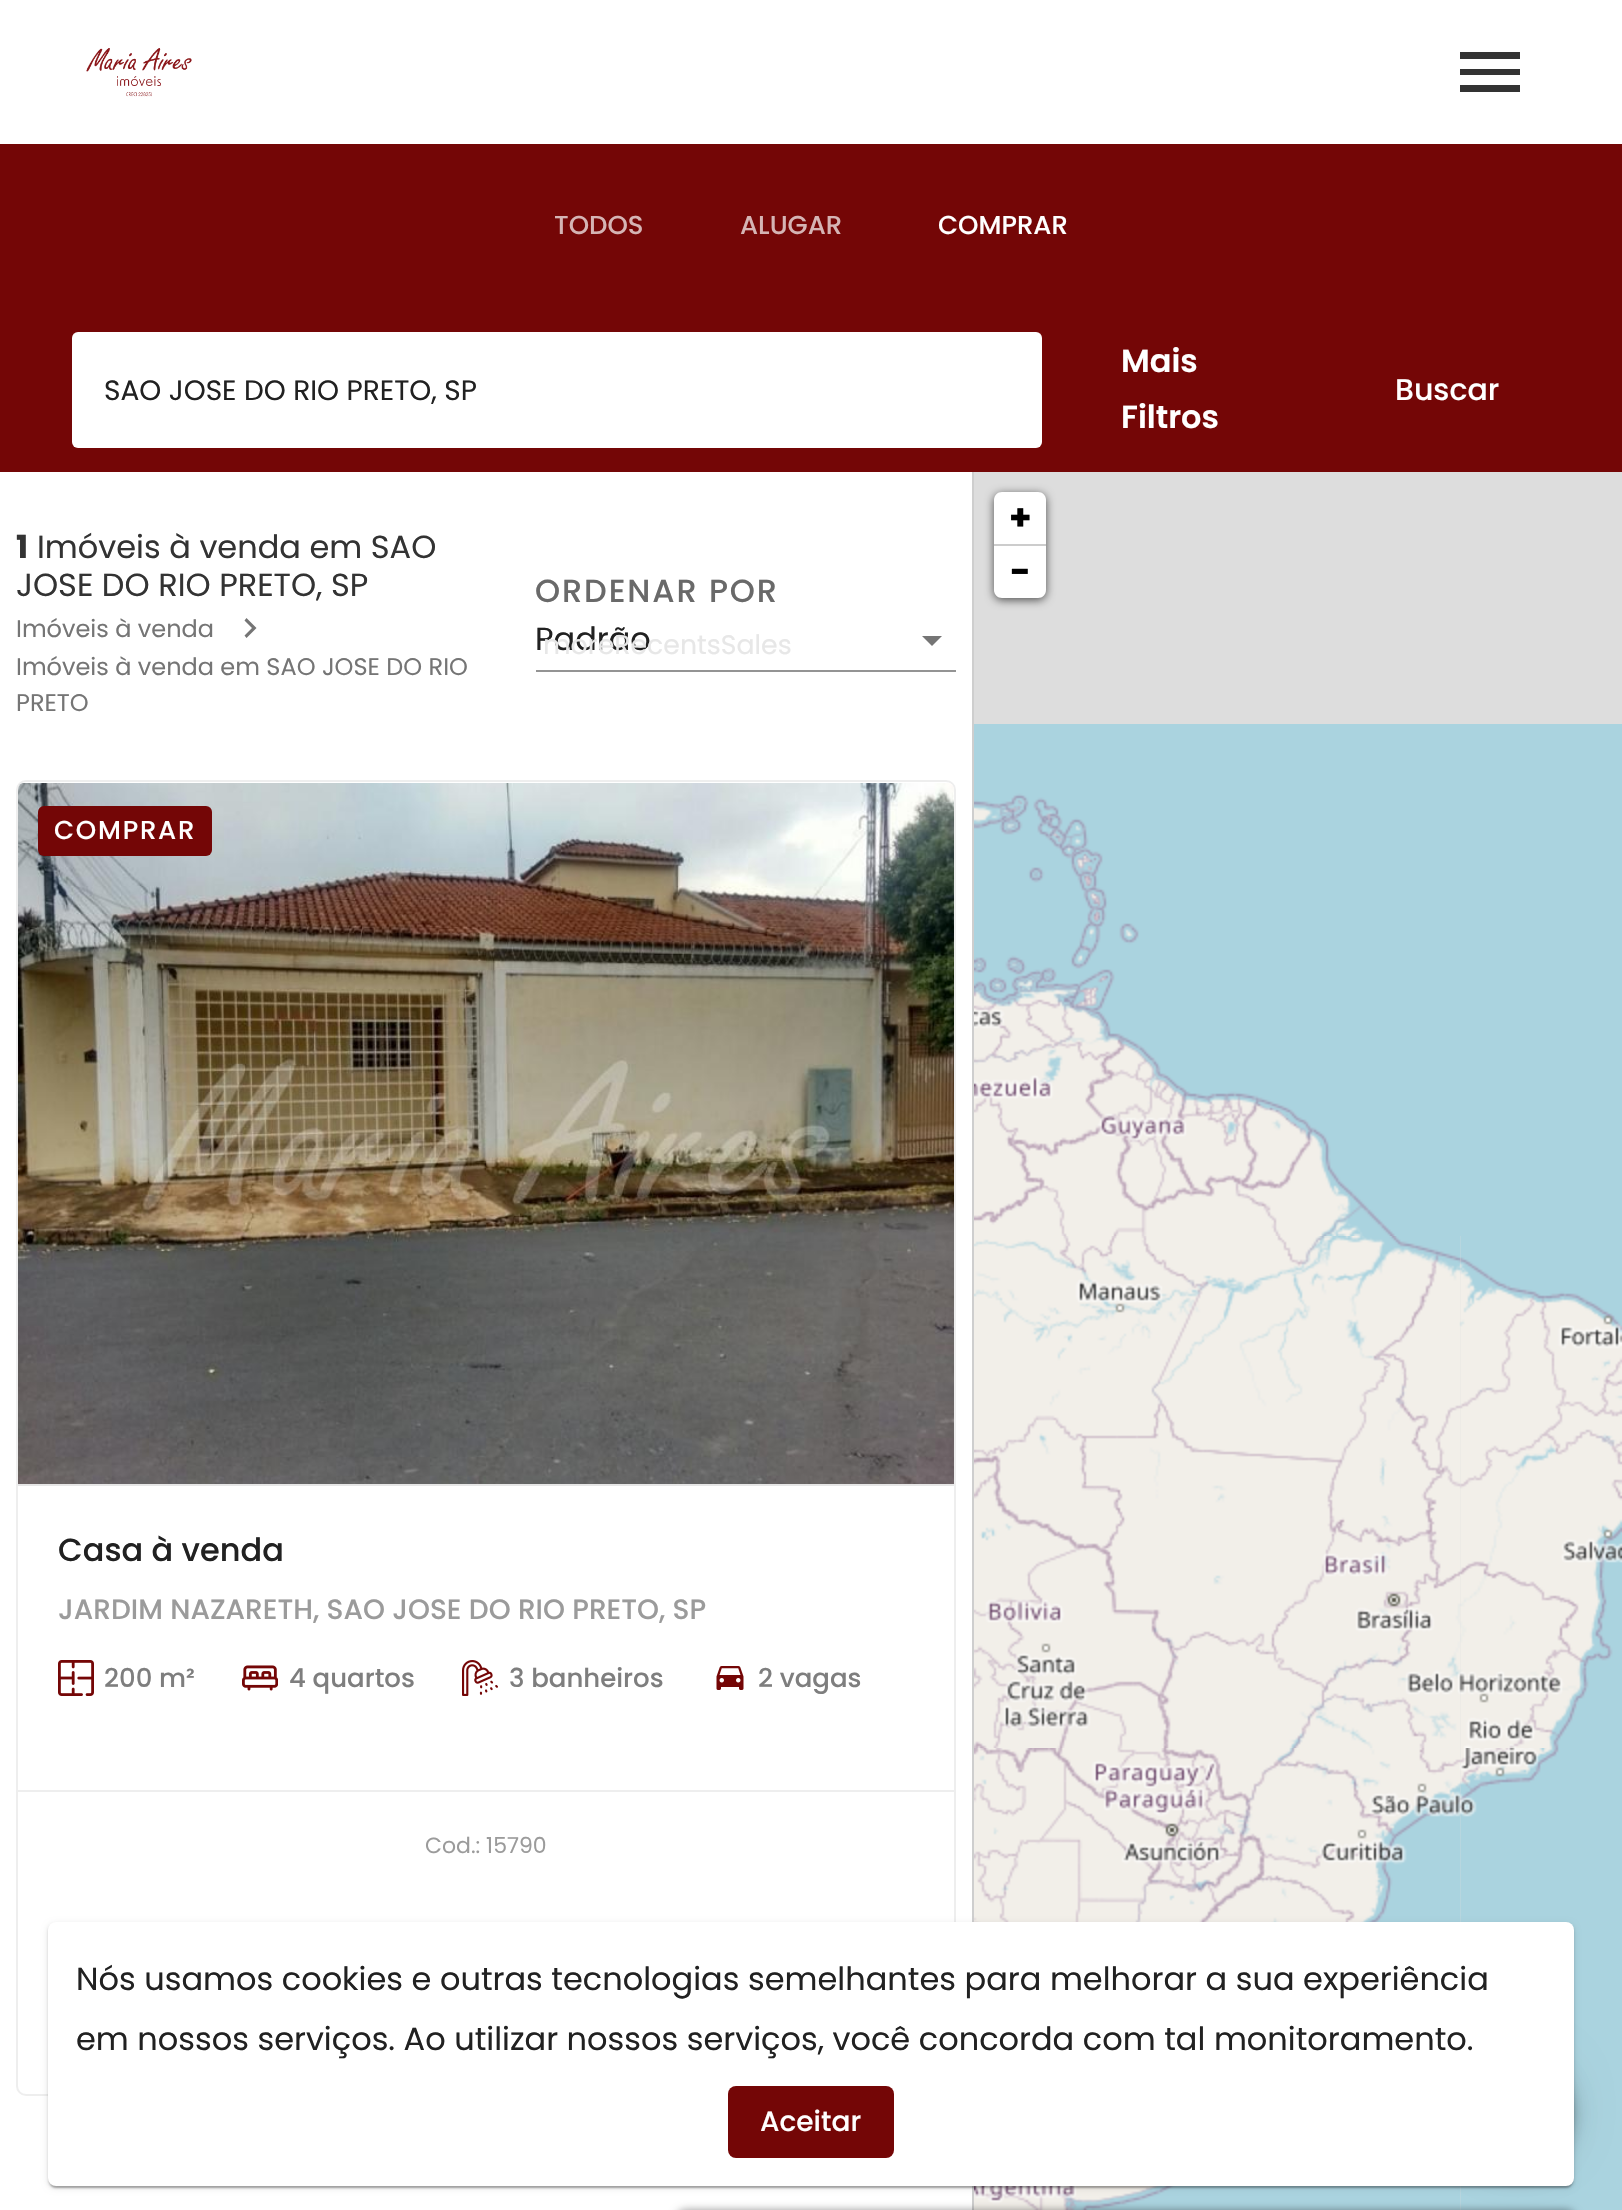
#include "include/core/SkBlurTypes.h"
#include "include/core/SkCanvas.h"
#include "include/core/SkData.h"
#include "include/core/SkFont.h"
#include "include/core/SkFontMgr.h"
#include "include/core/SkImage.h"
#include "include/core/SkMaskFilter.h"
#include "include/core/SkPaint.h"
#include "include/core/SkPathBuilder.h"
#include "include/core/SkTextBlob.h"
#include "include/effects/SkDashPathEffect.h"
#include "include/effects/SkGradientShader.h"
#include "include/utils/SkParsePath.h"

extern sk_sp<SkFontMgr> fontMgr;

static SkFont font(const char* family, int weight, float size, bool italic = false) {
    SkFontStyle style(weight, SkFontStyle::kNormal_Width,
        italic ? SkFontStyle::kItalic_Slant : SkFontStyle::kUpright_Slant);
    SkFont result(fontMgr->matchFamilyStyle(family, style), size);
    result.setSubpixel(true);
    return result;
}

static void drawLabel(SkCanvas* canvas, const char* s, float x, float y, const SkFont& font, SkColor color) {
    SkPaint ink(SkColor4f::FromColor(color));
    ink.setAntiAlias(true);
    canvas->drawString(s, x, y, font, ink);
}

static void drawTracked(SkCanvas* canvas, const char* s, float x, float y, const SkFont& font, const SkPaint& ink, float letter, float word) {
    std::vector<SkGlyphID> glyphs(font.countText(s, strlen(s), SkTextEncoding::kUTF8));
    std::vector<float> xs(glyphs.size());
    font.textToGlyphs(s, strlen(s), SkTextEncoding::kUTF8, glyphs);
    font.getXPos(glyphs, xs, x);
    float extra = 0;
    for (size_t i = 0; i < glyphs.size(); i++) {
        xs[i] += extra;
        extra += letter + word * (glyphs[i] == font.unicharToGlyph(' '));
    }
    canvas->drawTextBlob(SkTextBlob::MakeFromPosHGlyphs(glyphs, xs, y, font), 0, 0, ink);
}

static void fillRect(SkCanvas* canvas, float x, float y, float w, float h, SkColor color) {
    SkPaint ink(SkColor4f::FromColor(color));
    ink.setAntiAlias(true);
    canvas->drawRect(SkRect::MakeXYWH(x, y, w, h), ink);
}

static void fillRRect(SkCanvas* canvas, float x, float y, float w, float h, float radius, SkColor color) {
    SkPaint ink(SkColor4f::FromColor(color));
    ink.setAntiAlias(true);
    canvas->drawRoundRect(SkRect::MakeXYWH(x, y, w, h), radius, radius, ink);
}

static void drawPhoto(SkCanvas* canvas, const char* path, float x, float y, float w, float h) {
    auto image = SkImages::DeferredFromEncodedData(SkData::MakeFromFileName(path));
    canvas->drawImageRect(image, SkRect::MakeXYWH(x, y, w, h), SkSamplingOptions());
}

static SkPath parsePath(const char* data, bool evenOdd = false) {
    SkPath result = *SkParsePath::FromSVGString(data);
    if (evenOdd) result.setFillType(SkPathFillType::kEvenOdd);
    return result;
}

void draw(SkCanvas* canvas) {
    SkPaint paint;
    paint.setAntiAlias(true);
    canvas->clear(0xFFFFFFFF);
    drawPhoto(canvas, "assets/img1.png", 86, 48, 106, 49);
    paint.setColor(0xFF333333);
    canvas->drawPath(parsePath("M1460 92H1520V85H1460ZM1460 75H1520V69H1460ZM1460 52V59H1520V52Z"), paint);
    fillRect(canvas, 0, 144, 1622, 328, 0xFF740606);
    SkFont font1 = font("Poppins", 500, 26);
    drawLabel(canvas, "TODOS", 554, 234, font1, 0xFFD5B4B4);
    drawLabel(canvas, "ALUGAR", 740, 234, font1, 0xFFD5B4B4);
    drawLabel(canvas, "COMPRAR", 938, 234, font1, 0xFFFFFFFF);
    fillRRect(canvas, 72, 332, 970, 116, 6, 0xFFFFFFFF);
    SkFont font2 = font("Poppins", 400, 28);
    drawLabel(canvas, "SAO JOSE DO RIO PRETO, SP", 104, 400, font2, 0xFF212121);
    SkFont font3 = font("Poppins", 600, 32);
    drawLabel(canvas, "Mais", 1121, 372, font3, 0xFFFFFFFF);
    drawLabel(canvas, "Filtros", 1121, 428, font3, 0xFFFFFFFF);
    SkFont font4 = font("Poppins", 500, 30);
    drawLabel(canvas, "Buscar", 1395, 400, font4, 0xFFFFFFFF);
    fillRect(canvas, 972, 472, 2, 1738, 0xFFCECECE);
    SkFont font5 = font("Poppins", 700, 32);
    drawLabel(canvas, "1", 16, 558, font5, 0xFF333333);
    SkFont font6 = font("Poppins", 400, 32);
    drawLabel(canvas, "Imóveis à venda em SAO", 37, 558, font6, 0xFF333333);
    drawLabel(canvas, "JOSE DO RIO PRETO, SP", 16, 596, font6, 0xFF333333);
    SkFont font7 = font("Poppins", 400, 24);
    drawLabel(canvas, "Imóveis à venda", 16, 637, font7, 0xFF757575);
    paint.setColor(0xFF757575);
    canvas->drawPath(parsePath("M246.5 618L244.5 620.5L252 628L244.5 635.5L246.5 638L256.5 628Z"), paint);
    drawLabel(canvas, "Imóveis à venda em SAO JOSE DO RIO", 16, 675, font7, 0xFF757575);
    drawLabel(canvas, "PRETO", 16, 711, font7, 0xFF757575);
    SkFont font8 = font("Poppins", 500, 32);
    paint.setColor(0xFF696969);
    drawTracked(canvas, "ORDENAR POR", 535, 602, font8, paint, 1.9f, 0);
    drawLabel(canvas, "Padrão", 535, 650, font6, 0xFF212121);
    SkFont font9 = font("Poppins", 400, 26.75f);
    drawLabel(canvas, "moreRecentsSales", 543, 654, font9, 0xFFE7E7E7);
    paint.setColor(0xFF757575);
    canvas->drawPath(parsePath("M922 636L932 646L942 636Z"), paint);
    fillRect(canvas, 536, 670, 420, 2, 0xFF949494);
    paint.setStroke(true);
    paint.setStrokeWidth(2);
    paint.setColor(0xFFEEEEEE);
    canvas->drawRoundRect(SkRect::MakeXYWH(17, 781, 938, 1314), 9, 9, paint);
    fillRect(canvas, 18, 1484, 936, 2, 0xFFE6E6E6);
    drawPhoto(canvas, "assets/img2.png", 18, 783, 936, 701);
    fillRRect(canvas, 38, 806, 174, 50, 6, 0xFF740606);
    paint.setStroke(false);
    paint.setColor(0xFFFFFFFF);
    drawTracked(canvas, "COMPRAR", 54, 839, font1, paint, 1.75f, 0);
    drawLabel(canvas, "Casa à venda", 58, 1561, font8, 0xFF212121);
    SkFont font10 = font("Poppins", 500, 28);
    drawLabel(canvas, "JARDIM NAZARETH, SAO JOSE DO RIO PRETO, SP", 58, 1619, font10, 0xFF9B9B9B);
    drawPhoto(canvas, "assets/img3.png", 58, 1660, 36, 36);
    drawLabel(canvas, "200 m²", 104, 1687, font1, 0xFF7E7E7E);
    drawPhoto(canvas, "assets/img4.png", 242, 1665, 36, 26);
    drawLabel(canvas, "4 quartos", 289, 1687, font1, 0xFF7E7E7E);
    drawPhoto(canvas, "assets/img5.png", 462, 1660, 36, 36);
    drawLabel(canvas, "3 banheiros", 509, 1687, font1, 0xFF7E7E7E);
    drawPhoto(canvas, "assets/img6.png", 716, 1666, 28, 24);
    drawLabel(canvas, "2 vagas", 758, 1687, font1, 0xFF7E7E7E);
    fillRect(canvas, 18, 1790, 936, 2, 0xFFEEEEEE);
    SkFont font11 = font("Poppins", 400, 22);
    drawLabel(canvas, "Cod.: 15790", 425, 1853, font11, 0xFF9B9B9B);
    fillRect(canvas, 974, 472, 648, 1738, 0xFFDDDDDD);
    paint.setColor(0xA6000000);
    paint.setMaskFilter(SkMaskFilter::MakeBlur(kNormal_SkBlurStyle, 5));
    canvas->drawRoundRect(SkRect::MakeXYWH(994, 494, 52, 106), 8, 8, paint);
    paint.setMaskFilter(nullptr);
    paint.setColor(0xFFFFFFFF);
    canvas->drawPath(parsePath("M1002 492H1038C1042.5 492 1046 495.5 1046 500V546H994V500C994 495.5 997.5 492 1002 492Z"), paint);
    fillRect(canvas, 994, 544, 52, 2, 0xFFCCCCCC);
    SkFont font12 = font("Poppins", 700, 36);
    drawLabel(canvas, "+", 1009, 530, font12, 0xFF000000);
    canvas->drawPath(parsePath("M994 546H1046V590C1046 594.5 1042.5 598 1038 598H1002C997.5 598 994 594.5 994 590Z"), paint);
    drawLabel(canvas, "−", 1010, 584, font12, 0xFF000000);
    drawPhoto(canvas, "assets/img7.png", 974, 724, 486, 512);
    fillRect(canvas, 1460, 724, 162, 512, 0xFFAAD3DF);
    drawPhoto(canvas, "assets/img8.png", 974, 1236, 486, 512);
    drawPhoto(canvas, "assets/img9.png", 1459, 1236, 163, 512);
    drawPhoto(canvas, "assets/img10.png", 974, 1748, 486, 462);
    drawPhoto(canvas, "assets/img11.png", 1459, 1748, 163, 462);
    paint.setColor(0x1F000000);
    paint.setMaskFilter(SkMaskFilter::MakeBlur(kNormal_SkBlurStyle, 3));
    canvas->drawRoundRect(SkRect::MakeXYWH(48, 1924, 1526, 264), 8, 8, paint);
    paint.setMaskFilter(nullptr);
    paint.setColor(0x24000000);
    paint.setMaskFilter(SkMaskFilter::MakeBlur(kNormal_SkBlurStyle, 1));
    canvas->drawRoundRect(SkRect::MakeXYWH(48, 1924, 1526, 264), 8, 8, paint);
    paint.setMaskFilter(nullptr);
    paint.setColor(0x33000000);
    paint.setMaskFilter(SkMaskFilter::MakeBlur(kNormal_SkBlurStyle, 1));
    canvas->drawRoundRect(SkRect::MakeXYWH(50, 1928, 1522, 260), 6, 6, paint);
    paint.setMaskFilter(nullptr);
    paint.setColor(0x1F000000);
    paint.setMaskFilter(SkMaskFilter::MakeBlur(kNormal_SkBlurStyle, 18));
    canvas->drawRoundRect(SkRect::MakeXYWH(1462, 2052, 112, 112), 56, 56, paint);
    paint.setMaskFilter(nullptr);
    paint.setColor(0x24000000);
    paint.setMaskFilter(SkMaskFilter::MakeBlur(kNormal_SkBlurStyle, 10));
    canvas->drawRoundRect(SkRect::MakeXYWH(1462, 2062, 112, 112), 56, 56, paint);
    paint.setMaskFilter(nullptr);
    paint.setColor(0x33000000);
    paint.setMaskFilter(SkMaskFilter::MakeBlur(kNormal_SkBlurStyle, 5));
    canvas->drawRoundRect(SkRect::MakeXYWH(1464, 2058, 108, 108), 54, 54, paint);
    paint.setMaskFilter(nullptr);
    fillRRect(canvas, 48, 1922, 1526, 264, 8, 0xFFFFFFFF);
    drawLabel(canvas, "Nós usamos cookies e outras tecnologias semelhantes para melhorar a sua experiência", 76, 1990, font6, 0xFF212121);
    drawLabel(canvas, "em nossos serviços. Ao utilizar nossos serviços, você concorda com tal monitoramento.", 76, 2050, font6, 0xFF212121);
    fillRRect(canvas, 728, 2086, 166, 72, 8, 0xFF740606);
    drawLabel(canvas, "Aceitar", 760, 2131, font10, 0xFFFFFFFF);
    paint.setColor(0x66000000);
    paint.setMaskFilter(SkMaskFilter::MakeBlur(kNormal_SkBlurStyle, 4));
    canvas->drawRoundRect(SkRect::MakeXYWH(676, 2210, 900, 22), 10, 10, paint);
    paint.setMaskFilter(nullptr);
}
